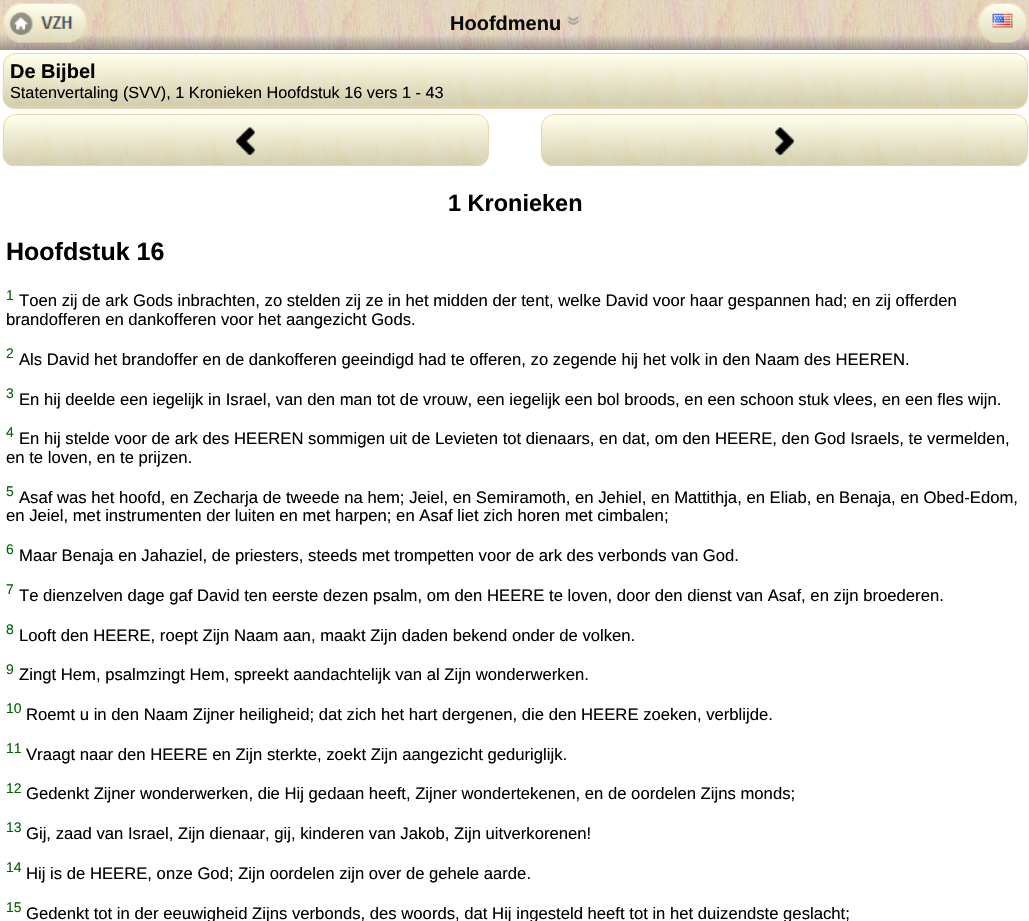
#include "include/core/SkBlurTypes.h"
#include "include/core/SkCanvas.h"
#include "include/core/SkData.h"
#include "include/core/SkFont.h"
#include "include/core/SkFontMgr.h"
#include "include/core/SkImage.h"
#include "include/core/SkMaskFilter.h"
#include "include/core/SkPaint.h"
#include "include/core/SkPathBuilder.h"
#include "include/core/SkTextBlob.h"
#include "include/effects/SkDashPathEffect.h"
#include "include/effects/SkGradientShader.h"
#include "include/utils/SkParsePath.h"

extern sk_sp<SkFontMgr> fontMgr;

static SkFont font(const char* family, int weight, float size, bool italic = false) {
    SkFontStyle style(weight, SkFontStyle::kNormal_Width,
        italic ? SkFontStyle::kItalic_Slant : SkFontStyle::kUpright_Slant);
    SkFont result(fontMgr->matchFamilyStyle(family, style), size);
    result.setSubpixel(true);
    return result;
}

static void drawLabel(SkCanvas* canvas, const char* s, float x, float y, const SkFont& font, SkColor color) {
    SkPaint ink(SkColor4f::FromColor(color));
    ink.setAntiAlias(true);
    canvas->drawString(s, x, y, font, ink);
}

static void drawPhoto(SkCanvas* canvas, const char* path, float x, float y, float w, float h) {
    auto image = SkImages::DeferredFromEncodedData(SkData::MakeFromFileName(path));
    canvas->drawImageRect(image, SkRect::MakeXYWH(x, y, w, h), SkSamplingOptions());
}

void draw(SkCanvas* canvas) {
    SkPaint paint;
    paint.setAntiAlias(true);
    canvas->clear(0xFFFFFFFF);
    drawPhoto(canvas, "assets/img2.png", 0, 0, 1029, 50);
    drawPhoto(canvas, "assets/img1.png", 2, 2, 86, 41);
    SkFont font1 = font("Liberation Sans", 700, 20);
    drawLabel(canvas, "Hoofdmenu", 450, 30, font1, 0xFF0A0A0A);
    drawPhoto(canvas, "assets/img3.png", 567, 16, 12, 9);
    drawPhoto(canvas, "assets/img4.png", 977, 2, 51, 41);
    drawPhoto(canvas, "assets/img5.png", 992, 13, 21, 15);
    drawPhoto(canvas, "assets/img6.png", 2, 53, 1026, 56);
    paint.setStroke(true);
    paint.setStrokeWidth(1);
    paint.setColor(0xFFF1D2AD);
    canvas->drawRoundRect(SkRect::MakeXYWH(3.5f, 53.5f, 1024, 55), 12.5f, 12.5f, paint);
    drawLabel(canvas, "De Bijbel", 10, 78, font1, 0xFF000000);
    SkFont font2 = font("Liberation Sans", 400, 16.25f);
    drawLabel(canvas, "Statenvertaling (SVV), 1 Kronieken Hoofdstuk 16 vers 1 - 43", 10, 98, font2, 0xFF000000);
    drawPhoto(canvas, "assets/img7.png", 2, 115, 487, 52);
    canvas->drawRoundRect(SkRect::MakeXYWH(3.5f, 114.5f, 485, 51), 12.5f, 12.5f, paint);
    drawPhoto(canvas, "assets/img8.png", 236, 127, 19, 28);
    drawPhoto(canvas, "assets/img9.png", 541, 115, 487, 52);
    canvas->drawRoundRect(SkRect::MakeXYWH(541.5f, 114.5f, 486, 51), 12.5f, 12.5f, paint);
    drawPhoto(canvas, "assets/img10.png", 775, 127, 19, 28);
    SkFont font3 = font("Liberation Sans", 700, 23.5f);
    drawLabel(canvas, "1 Kronieken", 448, 211, font3, 0xFF000000);
    SkFont font4 = font("Liberation Sans", 700, 25);
    drawLabel(canvas, "Hoofdstuk 16", 6, 260, font4, 0xFF000000);
    SkFont font5 = font("Liberation Sans", 400, 14);
    drawLabel(canvas, "1", 6, 300, font5, 0xFF006400);
    SkFont font6 = font("Liberation Sans", 400, 16.67f);
    drawLabel(canvas, "Toen zij de ark Gods inbrachten, zo stelden zij ze in het midden der tent, welke David voor haar gespannen had; en zij offerden", 19, 306, font6, 0xFF000000);
    drawLabel(canvas, "brandofferen en dankofferen voor het aangezicht Gods.", 6, 325, font6, 0xFF000000);
    drawLabel(canvas, "2", 6, 358, font5, 0xFF006400);
    drawLabel(canvas, "Als David het brandoffer en de dankofferen geeindigd had te offeren, zo zegende hij het volk in den Naam des HEEREN.", 19, 365, font6, 0xFF000000);
    drawLabel(canvas, "3", 6, 398, font5, 0xFF006400);
    drawLabel(canvas, "En hij deelde een iegelijk in Israel, van den man tot de vrouw, een iegelijk een bol broods, en een schoon stuk vlees, en een fles wijn.", 19, 405, font6, 0xFF000000);
    drawLabel(canvas, "4", 6, 437, font5, 0xFF006400);
    drawLabel(canvas, "En hij stelde voor de ark des HEEREN sommigen uit de Levieten tot dienaars, en dat, om den HEERE, den God Israels, te vermelden,", 19, 444, font6, 0xFF000000);
    drawLabel(canvas, "en te loven, en te prijzen.", 6, 463, font6, 0xFF000000);
    drawLabel(canvas, "5", 6, 496, font5, 0xFF006400);
    drawLabel(canvas, "Asaf was het hoofd, en Zecharja de tweede na hem; Jeiel, en Semiramoth, en Jehiel, en Mattithja, en Eliab, en Benaja, en Obed-Edom,", 19, 503, font6, 0xFF000000);
    drawLabel(canvas, "en Jeiel, met instrumenten der luiten en met harpen; en Asaf liet zich horen met cimbalen;", 6, 521, font6, 0xFF000000);
    drawLabel(canvas, "6", 6, 554, font5, 0xFF006400);
    drawLabel(canvas, "Maar Benaja en Jahaziel, de priesters, steeds met trompetten voor de ark des verbonds van God.", 19, 561, font6, 0xFF000000);
    drawLabel(canvas, "7", 6, 594, font5, 0xFF006400);
    drawLabel(canvas, "Te dienzelven dage gaf David ten eerste dezen psalm, om den HEERE te loven, door den dienst van Asaf, en zijn broederen.", 19, 601, font6, 0xFF000000);
    drawLabel(canvas, "8", 6, 634, font5, 0xFF006400);
    drawLabel(canvas, "Looft den HEERE, roept Zijn Naam aan, maakt Zijn daden bekend onder de volken.", 19, 641, font6, 0xFF000000);
    drawLabel(canvas, "9", 6, 674, font5, 0xFF006400);
    drawLabel(canvas, "Zingt Hem, psalmzingt Hem, spreekt aandachtelijk van al Zijn wonderwerken.", 19, 680, font6, 0xFF000000);
    drawLabel(canvas, "10", 6, 713, font5, 0xFF006400);
    drawLabel(canvas, "Roemt u in den Naam Zijner heiligheid; dat zich het hart dergenen, die den HEERE zoeken, verblijde.", 26, 720, font6, 0xFF000000);
    drawLabel(canvas, "11", 6, 753, font5, 0xFF006400);
    drawLabel(canvas, "Vraagt naar den HEERE en Zijn sterkte, zoekt Zijn aangezicht geduriglijk.", 26, 760, font6, 0xFF000000);
    drawLabel(canvas, "12", 6, 793, font5, 0xFF006400);
    drawLabel(canvas, "Gedenkt Zijner wonderwerken, die Hij gedaan heeft, Zijner wondertekenen, en de oordelen Zijns monds;", 26, 799, font6, 0xFF000000);
    drawLabel(canvas, "13", 6, 832, font5, 0xFF006400);
    drawLabel(canvas, "Gij, zaad van Israel, Zijn dienaar, gij, kinderen van Jakob, Zijn uitverkorenen!", 26, 839, font6, 0xFF000000);
    drawLabel(canvas, "14", 6, 872, font5, 0xFF006400);
    drawLabel(canvas, "Hij is de HEERE, onze God; Zijn oordelen zijn over de gehele aarde.", 26, 879, font6, 0xFF000000);
    drawLabel(canvas, "15", 6, 912, font5, 0xFF006400);
    drawLabel(canvas, "Gedenkt tot in der eeuwigheid Zijns verbonds, des woords, dat Hij ingesteld heeft tot in het duizendste geslacht;", 26, 919, font6, 0xFF000000);
}
